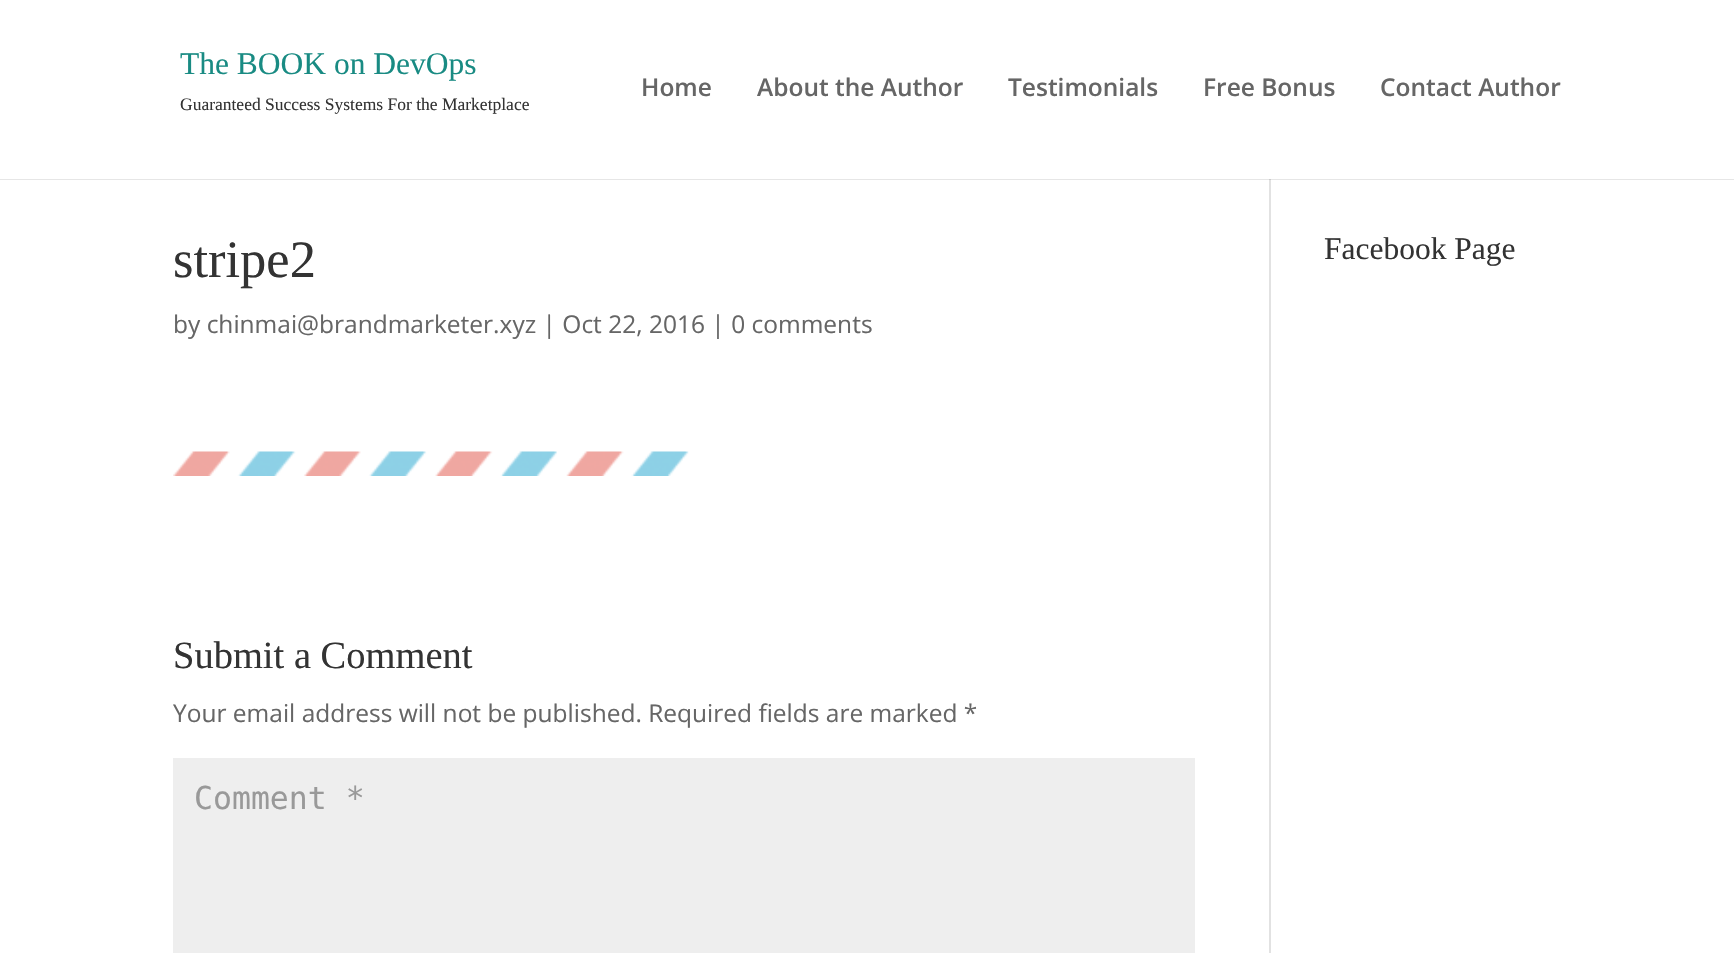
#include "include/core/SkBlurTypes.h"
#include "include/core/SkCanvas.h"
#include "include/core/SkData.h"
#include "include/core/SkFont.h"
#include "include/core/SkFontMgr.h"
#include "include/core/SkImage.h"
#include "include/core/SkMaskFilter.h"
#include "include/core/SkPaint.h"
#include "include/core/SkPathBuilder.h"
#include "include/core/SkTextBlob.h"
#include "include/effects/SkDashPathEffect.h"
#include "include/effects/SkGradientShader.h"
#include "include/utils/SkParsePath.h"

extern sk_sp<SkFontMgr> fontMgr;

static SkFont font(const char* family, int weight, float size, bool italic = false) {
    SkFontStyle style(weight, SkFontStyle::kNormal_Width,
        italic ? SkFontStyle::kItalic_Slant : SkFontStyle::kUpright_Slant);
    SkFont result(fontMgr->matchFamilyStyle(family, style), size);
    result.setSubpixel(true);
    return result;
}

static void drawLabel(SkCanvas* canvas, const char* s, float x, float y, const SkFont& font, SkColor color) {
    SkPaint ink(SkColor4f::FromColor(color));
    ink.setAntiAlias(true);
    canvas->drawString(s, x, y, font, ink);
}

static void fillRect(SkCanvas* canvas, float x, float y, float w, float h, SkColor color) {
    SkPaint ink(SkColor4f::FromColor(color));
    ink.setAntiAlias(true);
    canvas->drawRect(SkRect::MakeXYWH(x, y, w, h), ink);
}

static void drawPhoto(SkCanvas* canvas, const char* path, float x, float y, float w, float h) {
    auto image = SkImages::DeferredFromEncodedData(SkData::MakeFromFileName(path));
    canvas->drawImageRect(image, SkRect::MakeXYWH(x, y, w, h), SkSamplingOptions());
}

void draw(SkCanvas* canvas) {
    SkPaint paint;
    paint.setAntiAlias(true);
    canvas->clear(0xFFFFFFFF);
    fillRect(canvas, 0, 179, 1734, 1, 0xFFE6E6E6);
    SkFont font1 = font("Liberation Serif", 400, 31.5f);
    drawLabel(canvas, "The BOOK on DevOps", 180, 74, font1, 0xFF198B83);
    SkFont font2 = font("Liberation Serif", 400, 17.5f);
    drawLabel(canvas, "Guaranteed Success Systems For the Marketplace", 180, 110, font2, 0xFF333333);
    SkFont font3 = font("Open Sans", 600, 24.5f);
    drawLabel(canvas, "Home", 641, 96, font3, 0xFF666666);
    drawLabel(canvas, "About the Author", 757, 96, font3, 0xFF666666);
    drawLabel(canvas, "Testimonials", 1008, 96, font3, 0xFF666666);
    drawLabel(canvas, "Free Bonus", 1203, 96, font3, 0xFF666666);
    drawLabel(canvas, "Contact Author", 1380, 96, font3, 0xFF666666);
    fillRect(canvas, 1269, 180, 2, 773, 0xFFE2E2E2);
    fillRect(canvas, 1269, 179, 2, 1, 0xFFCBCBCB);
    SkFont font4 = font("Liberation Serif", 400, 52.5f);
    drawLabel(canvas, "stripe2", 173, 277, font4, 0xFF333333);
    SkFont font5 = font("Open Sans", 400, 24.5f);
    drawLabel(canvas, "by chinmai@brandmarketer.xyz | Oct 22, 2016 | 0 comments", 173, 333, font5, 0xFF666666);
    drawPhoto(canvas, "assets/img1.png", 173, 451, 516, 25);
    SkFont font6 = font("Liberation Serif", 400, 38.5f);
    drawLabel(canvas, "Submit a Comment", 173, 668, font6, 0xFF333333);
    drawLabel(canvas, "Your email address will not be published. Required fields are marked *", 173, 722, font5, 0xFF666666);
    fillRect(canvas, 173, 758, 1022, 195, 0xFFEEEEEE);
    SkFont font7 = font("DejaVu Sans Mono", 400, 31.5f);
    drawLabel(canvas, "Comment *", 194, 809, font7, 0xFF999999);
    drawLabel(canvas, "Facebook Page", 1324, 259, font1, 0xFF333333);
}
